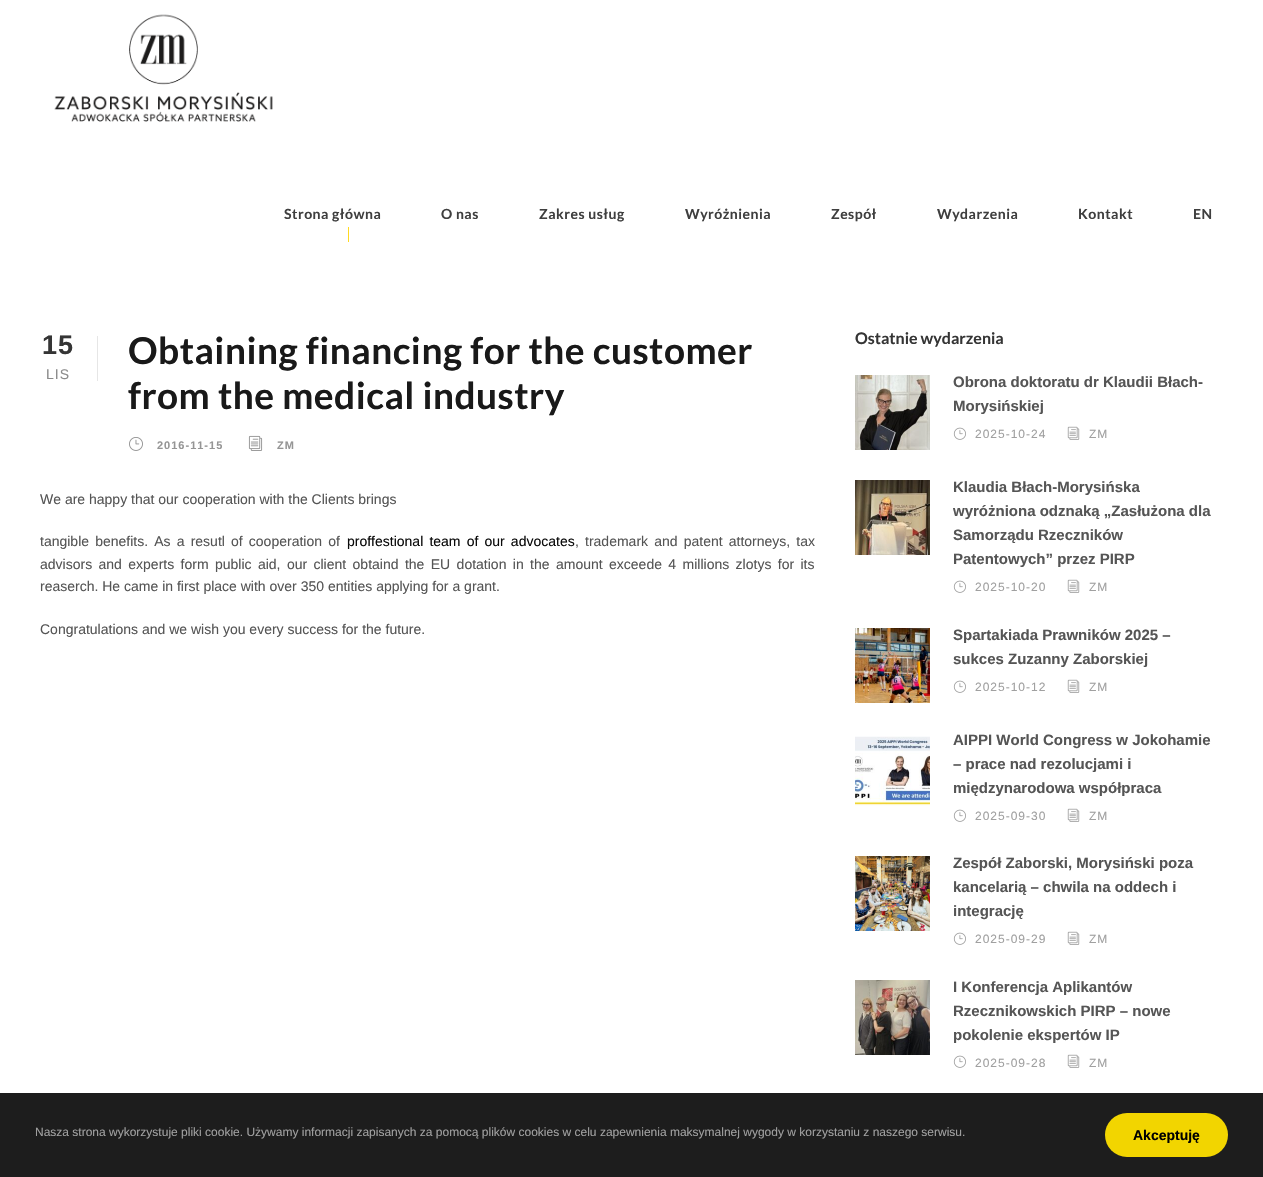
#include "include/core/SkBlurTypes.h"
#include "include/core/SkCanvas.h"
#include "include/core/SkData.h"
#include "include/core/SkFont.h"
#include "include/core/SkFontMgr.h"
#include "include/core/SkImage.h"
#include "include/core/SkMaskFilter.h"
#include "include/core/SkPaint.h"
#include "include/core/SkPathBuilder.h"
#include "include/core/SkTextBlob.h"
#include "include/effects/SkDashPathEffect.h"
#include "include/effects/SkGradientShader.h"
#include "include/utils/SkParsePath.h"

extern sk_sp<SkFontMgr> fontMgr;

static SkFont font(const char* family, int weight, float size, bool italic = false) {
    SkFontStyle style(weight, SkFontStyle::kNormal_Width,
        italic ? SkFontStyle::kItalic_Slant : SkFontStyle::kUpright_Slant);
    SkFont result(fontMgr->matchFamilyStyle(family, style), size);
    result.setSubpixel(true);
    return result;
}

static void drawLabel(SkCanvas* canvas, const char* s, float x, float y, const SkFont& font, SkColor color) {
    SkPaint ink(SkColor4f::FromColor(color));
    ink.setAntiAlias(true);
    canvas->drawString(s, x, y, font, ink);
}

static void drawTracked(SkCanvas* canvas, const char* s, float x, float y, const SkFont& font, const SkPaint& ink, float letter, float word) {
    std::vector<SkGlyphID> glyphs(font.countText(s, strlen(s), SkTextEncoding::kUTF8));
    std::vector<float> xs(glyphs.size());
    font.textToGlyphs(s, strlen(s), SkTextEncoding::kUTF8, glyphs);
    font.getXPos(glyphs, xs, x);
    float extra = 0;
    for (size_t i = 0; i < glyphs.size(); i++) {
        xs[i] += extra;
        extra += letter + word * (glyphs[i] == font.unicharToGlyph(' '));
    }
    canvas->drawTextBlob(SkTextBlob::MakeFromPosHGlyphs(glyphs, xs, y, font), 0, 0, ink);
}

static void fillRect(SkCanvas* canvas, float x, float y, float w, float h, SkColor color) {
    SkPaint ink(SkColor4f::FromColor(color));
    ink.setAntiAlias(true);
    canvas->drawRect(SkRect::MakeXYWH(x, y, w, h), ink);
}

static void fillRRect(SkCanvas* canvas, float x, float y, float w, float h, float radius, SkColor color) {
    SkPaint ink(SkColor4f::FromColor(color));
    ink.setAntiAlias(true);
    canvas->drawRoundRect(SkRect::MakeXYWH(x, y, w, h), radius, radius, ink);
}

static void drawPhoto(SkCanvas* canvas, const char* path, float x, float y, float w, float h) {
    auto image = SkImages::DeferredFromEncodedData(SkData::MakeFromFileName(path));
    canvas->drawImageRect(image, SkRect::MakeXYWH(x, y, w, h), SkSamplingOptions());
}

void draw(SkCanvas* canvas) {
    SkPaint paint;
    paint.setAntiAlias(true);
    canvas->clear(0xFFFFFFFF);
    drawPhoto(canvas, "assets/img1.png", 54, 14, 219, 108);
    SkFont font1 = font("Lato", 700, 14);
    paint.setColor(0xFF3F3F3F);
    drawTracked(canvas, "Strona główna", 284, 219, font1, paint, 0.5f, 0);
    drawTracked(canvas, "O nas", 441, 219, font1, paint, 0.5f, 0);
    drawTracked(canvas, "Zakres usług", 539, 219, font1, paint, 0.5f, 0);
    drawTracked(canvas, "Wyróżnienia", 685, 219, font1, paint, 0.5f, 0);
    drawTracked(canvas, "Zespół", 831, 219, font1, paint, 0.5f, 0);
    drawTracked(canvas, "Wydarzenia", 937, 219, font1, paint, 0.5f, 0);
    drawTracked(canvas, "Kontakt", 1078, 219, font1, paint, 0.5f, 0);
    drawTracked(canvas, "EN", 1193, 219, font1, paint, 0.5f, 0);
    fillRect(canvas, 348, 227, 1, 15, 0xFFFFDA23);
    fillRect(canvas, 97, 336, 1, 45, 0xFFE6E6E6);
    SkFont font2 = font("Liberation Sans", 700, 27);
    paint.setColor(0xFF353535);
    drawTracked(canvas, "15", 42, 354, font2, paint, 1, 0);
    SkFont font3 = font("Liberation Sans", 400, 14);
    paint.setColor(0xFF8A8A8A);
    drawTracked(canvas, "LIS", 46, 379, font3, paint, 1, 0);
    SkFont font4 = font("Lato", 700, 37);
    paint.setColor(0xFF191919);
    drawTracked(canvas, "Obtaining financing for the customer", 128, 364, font4, paint, 0.5f, 0);
    drawTracked(canvas, "from the medical industry", 128, 409, font4, paint, 0.5f, 0);
    drawPhoto(canvas, "assets/img2.png", 129, 437, 14, 14);
    SkFont font5 = font("Liberation Sans", 700, 11);
    paint.setColor(0xFF959595);
    drawTracked(canvas, "2016-11-15", 157, 449, font5, paint, 1, 0);
    drawPhoto(canvas, "assets/img3.png", 248, 435, 15, 16);
    drawTracked(canvas, "ZM", 277, 449, font5, paint, 1, 0);
    drawLabel(canvas, "We are happy that our cooperation with the Clients brings", 40, 504, font3, 0xFF555555);
    paint.setColor(0xFF555555);
    drawTracked(canvas, "tangible benefits. As a resutl of cooperation of", 40, 546, font3, paint, 0, 2.25f);
    paint.setColor(0xFF0A0A0A);
    drawTracked(canvas, "proffestional team of our advocates", 347, 546, font3, paint, 0, 2.25f);
    paint.setColor(0xFF555555);
    drawTracked(canvas, ", trademark and patent attorneys, tax", 575, 546, font3, paint, 0, 2.25f);
    drawTracked(canvas, "advisors and experts form public aid, our client obtaind the EU dotation in the amount exceede 4 millions zlotys for its", 40, 569, font3, paint, 0, 2.5f);
    drawLabel(canvas, "reaserch. He came in first place with over 350 entities applying for a grant.", 40, 591, font3, 0xFF555555);
    drawLabel(canvas, "Congratulations and we wish you every success for the future.", 40, 634, font3, 0xFF555555);
    SkFont font6 = font("Lato", 700, 16);
    drawLabel(canvas, "Ostatnie wydarzenia", 855, 344, font6, 0xFF353535);
    drawPhoto(canvas, "assets/img4.png", 855, 375, 75, 75);
    SkFont font7 = font("Liberation Sans", 700, 15);
    drawLabel(canvas, "Obrona doktoratu dr Klaudii Błach-", 953, 387, font7, 0xFF555555);
    drawLabel(canvas, "Morysińskiej", 953, 411, font7, 0xFF555555);
    drawPhoto(canvas, "assets/img5.png", 953, 427, 13, 13);
    SkFont font8 = font("Liberation Sans", 400, 12);
    paint.setColor(0xFFA0A0A0);
    drawTracked(canvas, "2025-10-24", 975, 438, font8, paint, 1, 0);
    drawPhoto(canvas, "assets/img6.png", 1067, 426, 13, 14);
    drawTracked(canvas, "ZM", 1089, 438, font8, paint, 1, 0);
    drawPhoto(canvas, "assets/img7.png", 855, 480, 75, 75);
    drawLabel(canvas, "Klaudia Błach-Morysińska", 953, 492, font7, 0xFF555555);
    drawLabel(canvas, "wyróżniona odznaką „Zasłużona dla", 953, 516, font7, 0xFF555555);
    drawLabel(canvas, "Samorządu Rzeczników", 953, 540, font7, 0xFF555555);
    drawLabel(canvas, "Patentowych” przez PIRP", 953, 564, font7, 0xFF555555);
    drawPhoto(canvas, "assets/img5.png", 953, 580, 13, 13);
    drawTracked(canvas, "2025-10-20", 975, 591, font8, paint, 1, 0);
    drawPhoto(canvas, "assets/img6.png", 1067, 579, 13, 14);
    drawTracked(canvas, "ZM", 1089, 591, font8, paint, 1, 0);
    drawPhoto(canvas, "assets/img8.png", 855, 628, 75, 75);
    drawLabel(canvas, "Spartakiada Prawników 2025 –", 953, 640, font7, 0xFF555555);
    drawLabel(canvas, "sukces Zuzanny Zaborskiej", 953, 664, font7, 0xFF555555);
    drawPhoto(canvas, "assets/img5.png", 953, 680, 13, 13);
    drawTracked(canvas, "2025-10-12", 975, 691, font8, paint, 1, 0);
    drawPhoto(canvas, "assets/img6.png", 1067, 679, 13, 14);
    drawTracked(canvas, "ZM", 1089, 691, font8, paint, 1, 0);
    drawPhoto(canvas, "assets/img9.png", 855, 736, 75, 70);
    drawLabel(canvas, "AIPPI World Congress w Jokohamie", 953, 745, font7, 0xFF555555);
    drawLabel(canvas, "– prace nad rezolucjami i", 953, 769, font7, 0xFF555555);
    drawLabel(canvas, "międzynarodowa współpraca", 953, 793, font7, 0xFF555555);
    drawPhoto(canvas, "assets/img5.png", 953, 809, 13, 13);
    drawTracked(canvas, "2025-09-30", 975, 820, font8, paint, 1, 0);
    drawPhoto(canvas, "assets/img6.png", 1067, 808, 13, 14);
    drawTracked(canvas, "ZM", 1089, 820, font8, paint, 1, 0);
    drawPhoto(canvas, "assets/img10.png", 855, 856, 75, 75);
    drawLabel(canvas, "Zespół Zaborski, Morysiński poza", 953, 868, font7, 0xFF555555);
    drawLabel(canvas, "kancelarią – chwila na oddech i", 953, 892, font7, 0xFF555555);
    drawLabel(canvas, "integrację", 953, 916, font7, 0xFF555555);
    drawPhoto(canvas, "assets/img5.png", 953, 932, 13, 13);
    drawTracked(canvas, "2025-09-29", 975, 943, font8, paint, 1, 0);
    drawPhoto(canvas, "assets/img6.png", 1067, 931, 13, 14);
    drawTracked(canvas, "ZM", 1089, 943, font8, paint, 1, 0);
    drawPhoto(canvas, "assets/img11.png", 855, 980, 75, 75);
    drawLabel(canvas, "I Konferencja Aplikantów", 953, 992, font7, 0xFF555555);
    drawLabel(canvas, "Rzecznikowskich PIRP – nowe", 953, 1016, font7, 0xFF555555);
    drawLabel(canvas, "pokolenie ekspertów IP", 953, 1040, font7, 0xFF555555);
    drawPhoto(canvas, "assets/img5.png", 953, 1055, 13, 13);
    drawTracked(canvas, "2025-09-28", 975, 1067, font8, paint, 1, 0);
    drawPhoto(canvas, "assets/img6.png", 1067, 1054, 13, 14);
    drawTracked(canvas, "ZM", 1089, 1067, font8, paint, 1, 0);
    fillRect(canvas, 0, 1093, 1263, 84, 0xFF1D1D1D);
    drawLabel(canvas, "Nasza strona wykorzystuje pliki cookie. Używamy informacji zapisanych za pomocą plików cookies w celu zapewnienia maksymalnej wygody w korzystaniu z naszego serwisu.", 35, 1136, font8, 0xFFA0A0A0);
    fillRRect(canvas, 1105, 1113, 123, 44, 22, 0xFFF2D500);
    SkFont font9 = font("Liberation Sans", 700, 14);
    drawLabel(canvas, "Akceptuję", 1133, 1140, font9, 0xFF000000);
}
